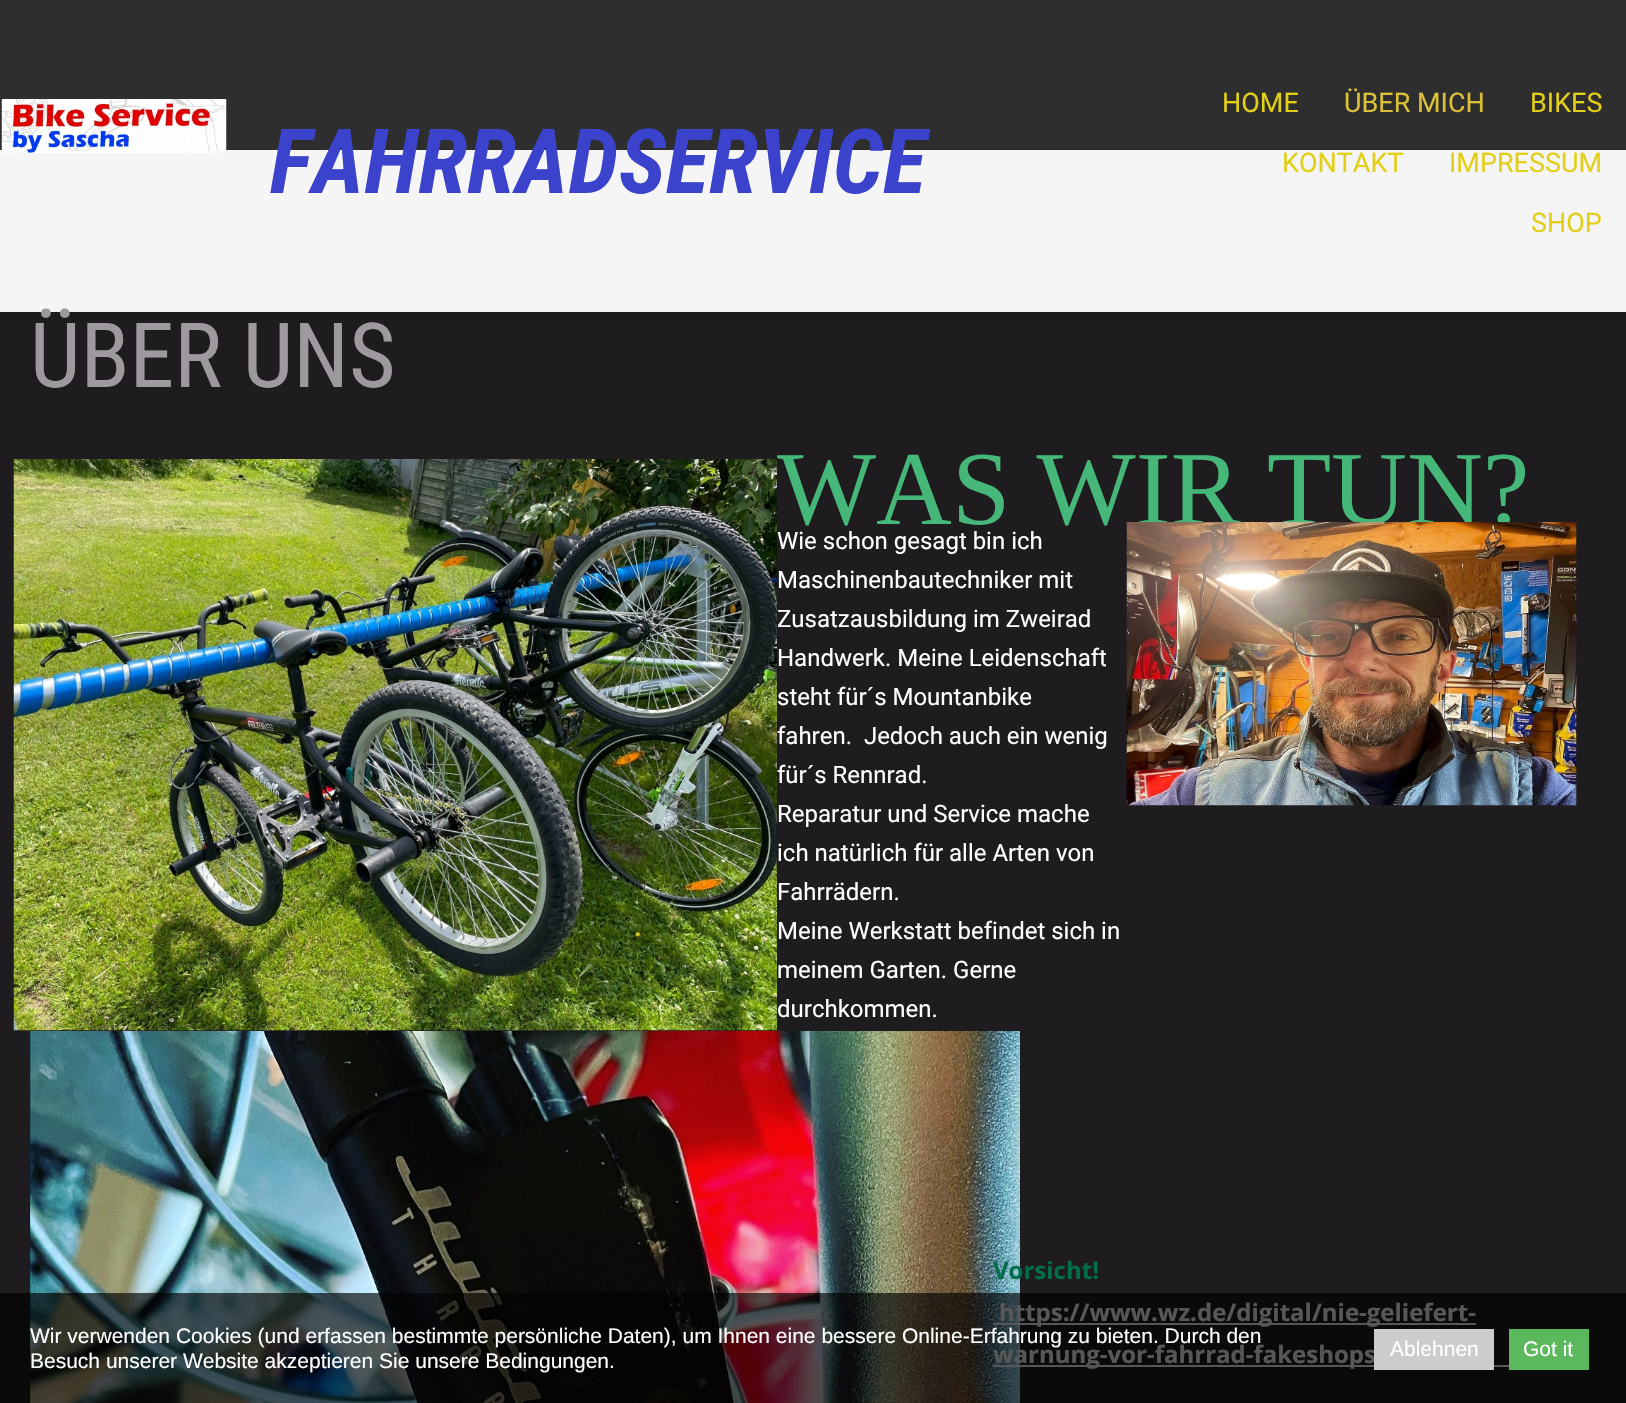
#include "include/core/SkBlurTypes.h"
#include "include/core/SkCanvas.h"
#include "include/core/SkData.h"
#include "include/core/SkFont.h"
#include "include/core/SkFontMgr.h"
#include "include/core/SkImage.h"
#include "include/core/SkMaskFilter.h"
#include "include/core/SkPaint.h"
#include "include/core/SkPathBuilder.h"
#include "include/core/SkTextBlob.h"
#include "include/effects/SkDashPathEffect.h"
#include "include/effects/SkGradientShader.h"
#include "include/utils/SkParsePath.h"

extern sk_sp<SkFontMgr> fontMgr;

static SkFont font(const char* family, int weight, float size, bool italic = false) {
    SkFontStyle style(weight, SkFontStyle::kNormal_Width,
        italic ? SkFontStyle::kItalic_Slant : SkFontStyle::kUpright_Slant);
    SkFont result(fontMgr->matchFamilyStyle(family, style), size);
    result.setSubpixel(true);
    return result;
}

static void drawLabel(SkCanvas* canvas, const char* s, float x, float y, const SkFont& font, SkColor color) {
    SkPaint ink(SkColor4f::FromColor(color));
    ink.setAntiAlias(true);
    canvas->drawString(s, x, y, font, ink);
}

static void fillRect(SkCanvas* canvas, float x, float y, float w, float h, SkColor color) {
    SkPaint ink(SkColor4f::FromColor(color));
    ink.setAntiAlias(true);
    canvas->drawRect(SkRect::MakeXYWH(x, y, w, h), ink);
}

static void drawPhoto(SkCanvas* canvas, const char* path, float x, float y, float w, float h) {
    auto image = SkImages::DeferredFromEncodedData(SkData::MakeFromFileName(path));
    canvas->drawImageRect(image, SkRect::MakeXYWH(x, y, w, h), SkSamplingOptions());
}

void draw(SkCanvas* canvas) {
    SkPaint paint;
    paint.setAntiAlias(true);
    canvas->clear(0xFFF5F5F5);
    fillRect(canvas, 0, 0, 1626, 150, 0xFF2E2E2E);
    drawPhoto(canvas, "assets/img1.png", 1, 99, 226, 54);
    SkFont font1 = font("Roboto Condensed", 700, 90, true);
    drawLabel(canvas, "FAHRRADSERVICE", 270, 193, font1, 0xFF3B42CC);
    SkFont font2 = font("Roboto", 400, 27);
    drawLabel(canvas, "HOME", 1222, 112, font2, 0xFFE3CF17);
    drawLabel(canvas, "ÜBER MICH", 1344, 112, font2, 0xFFDBC038);
    drawLabel(canvas, "BIKES", 1530, 112, font2, 0xFFE3CF17);
    drawLabel(canvas, "KONTAKT", 1282, 172, font2, 0xFFE3CF17);
    drawLabel(canvas, "IMPRESSUM", 1449, 172, font2, 0xFFE3CF17);
    drawLabel(canvas, "SHOP", 1531, 232, font2, 0xFFE3CF17);
    fillRect(canvas, 0, 312, 1626, 1091, 0xFF1F1C1F);
    SkFont font3 = font("Roboto Condensed", 400, 90);
    drawLabel(canvas, "ÜBER UNS", 30, 387, font3, 0xFF9E999E);
    drawPhoto(canvas, "assets/img2.png", 13, 459, 764, 572);
    SkFont font4 = font("Liberation Serif", 400, 105);
    drawLabel(canvas, "WAS WIR TUN?", 777, 524, font4, 0xFF45B778);
    SkFont font5 = font("Roboto", 400, 24);
    drawLabel(canvas, "Wie schon gesagt bin ich", 777, 549, font5, 0xFFFFFFFF);
    drawLabel(canvas, "Maschinenbautechniker mit", 777, 588, font5, 0xFFFFFFFF);
    drawLabel(canvas, "Zusatzausbildung im Zweirad", 777, 627, font5, 0xFFFFFFFF);
    drawLabel(canvas, "Handwerk. Meine Leidenschaft", 777, 666, font5, 0xFFFFFFFF);
    drawLabel(canvas, "steht für´s Mountanbike", 777, 705, font5, 0xFFFFFFFF);
    drawLabel(canvas, "fahren.  Jedoch auch ein wenig", 777, 744, font5, 0xFFFFFFFF);
    drawLabel(canvas, "für´s Rennrad.", 777, 783, font5, 0xFFFFFFFF);
    drawLabel(canvas, "Reparatur und Service mache", 777, 822, font5, 0xFFFFFFFF);
    drawLabel(canvas, "ich natürlich für alle Arten von", 777, 861, font5, 0xFFFFFFFF);
    drawLabel(canvas, "Fahrrädern.", 777, 900, font5, 0xFFFFFFFF);
    drawLabel(canvas, "Meine Werkstatt befindet sich in", 777, 939, font5, 0xFFFFFFFF);
    drawLabel(canvas, "meinem Garten. Gerne", 777, 978, font5, 0xFFFFFFFF);
    drawLabel(canvas, "durchkommen.", 777, 1017, font5, 0xFFFFFFFF);
    drawPhoto(canvas, "assets/img3.png", 1126, 522, 451, 284);
    drawPhoto(canvas, "assets/img4.png", 30, 1031, 990, 372);
    SkFont font6 = font("Open Sans", 700, 24);
    drawLabel(canvas, "Vorsicht!", 993, 1279, font6, 0xFF006E49);
    fillRect(canvas, 993, 1323, 483, 2, 0xFFFFFFFF);
    drawLabel(canvas, "https://www.wz.de/digital/nie-geliefert-", 999, 1321, font6, 0xFFFFFFFF);
    fillRect(canvas, 993, 1365, 516, 2, 0xFFFFFFFF);
    drawLabel(canvas, "warnung-vor-fahrrad-fakeshops", 993, 1363, font6, 0xFFFFFFFF);
    fillRect(canvas, 0, 1293, 1626, 110, 0xA8000000);
    SkFont font7 = font("Liberation Sans", 400, 21);
    drawLabel(canvas, "Wir verwenden Cookies (und erfassen bestimmte persönliche Daten), um Ihnen eine bessere Online-Erfahrung zu bieten. Durch den", 30, 1343, font7, 0xFFFFFFFF);
    drawLabel(canvas, "Besuch unserer Website akzeptieren Sie unsere Bedingungen.", 30, 1368, font7, 0xFFFFFFFF);
    fillRect(canvas, 1374, 1329, 120, 41, 0xFFCCCCCC);
    drawLabel(canvas, "Ablehnen", 1390, 1356, font7, 0xFFFFFFFF);
    fillRect(canvas, 1509, 1329, 80, 41, 0xFF5CB85C);
    drawLabel(canvas, "Got it", 1523, 1356, font7, 0xFFFFFFFF);
}
